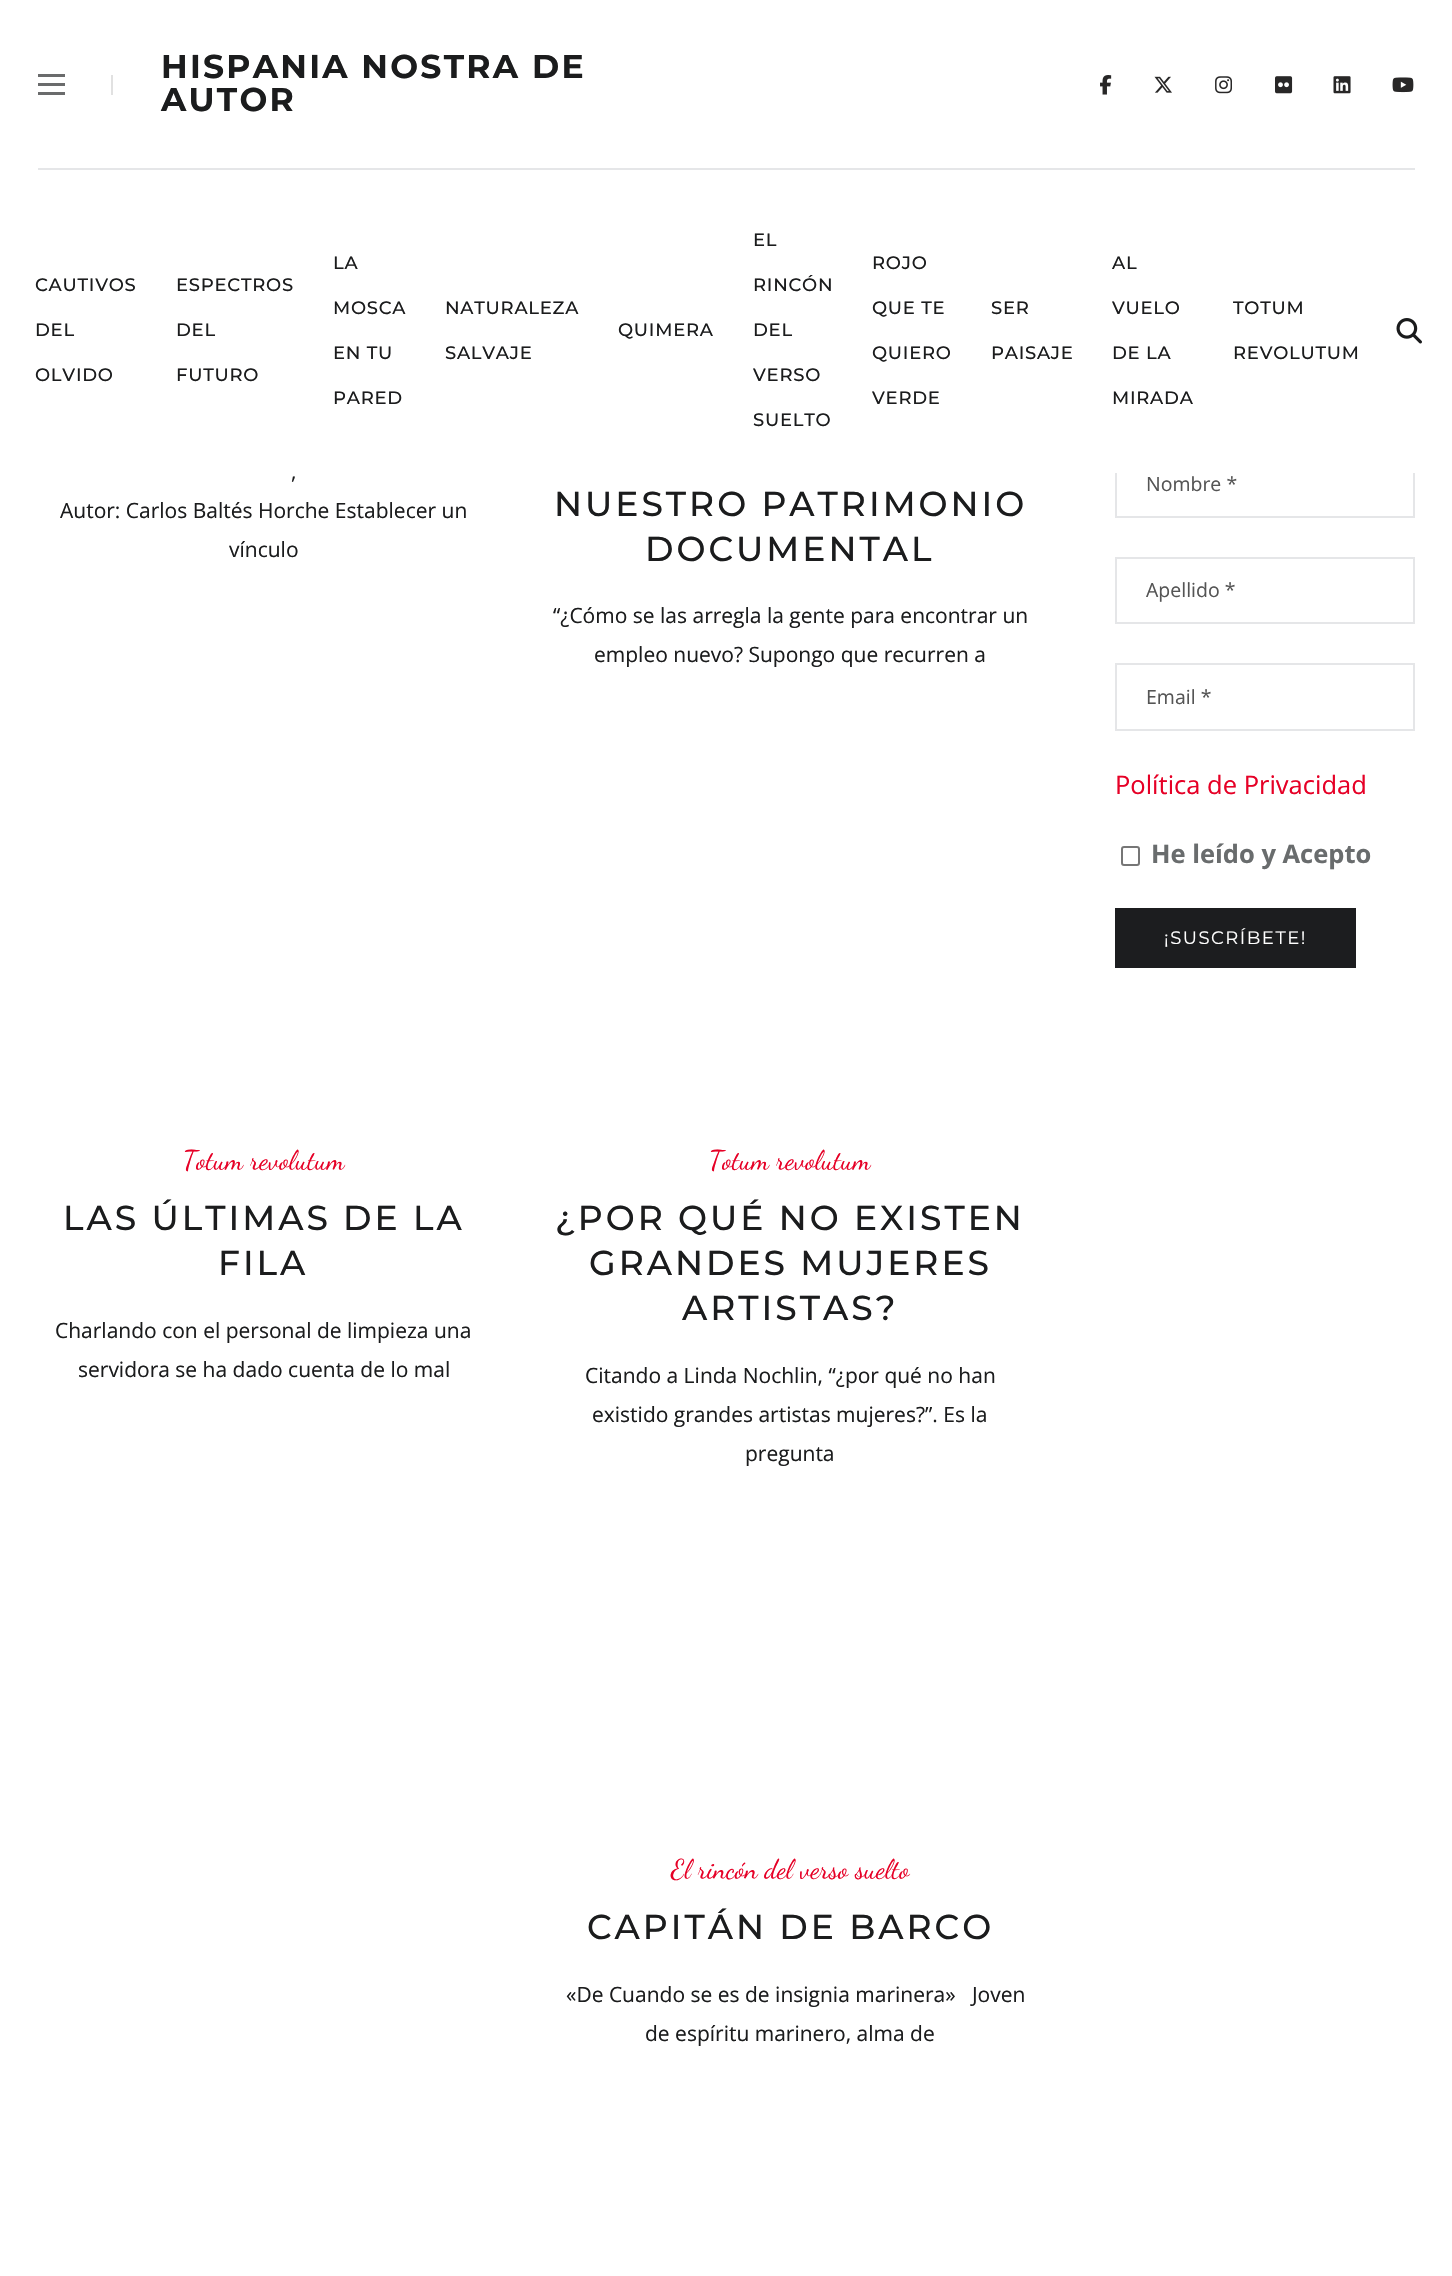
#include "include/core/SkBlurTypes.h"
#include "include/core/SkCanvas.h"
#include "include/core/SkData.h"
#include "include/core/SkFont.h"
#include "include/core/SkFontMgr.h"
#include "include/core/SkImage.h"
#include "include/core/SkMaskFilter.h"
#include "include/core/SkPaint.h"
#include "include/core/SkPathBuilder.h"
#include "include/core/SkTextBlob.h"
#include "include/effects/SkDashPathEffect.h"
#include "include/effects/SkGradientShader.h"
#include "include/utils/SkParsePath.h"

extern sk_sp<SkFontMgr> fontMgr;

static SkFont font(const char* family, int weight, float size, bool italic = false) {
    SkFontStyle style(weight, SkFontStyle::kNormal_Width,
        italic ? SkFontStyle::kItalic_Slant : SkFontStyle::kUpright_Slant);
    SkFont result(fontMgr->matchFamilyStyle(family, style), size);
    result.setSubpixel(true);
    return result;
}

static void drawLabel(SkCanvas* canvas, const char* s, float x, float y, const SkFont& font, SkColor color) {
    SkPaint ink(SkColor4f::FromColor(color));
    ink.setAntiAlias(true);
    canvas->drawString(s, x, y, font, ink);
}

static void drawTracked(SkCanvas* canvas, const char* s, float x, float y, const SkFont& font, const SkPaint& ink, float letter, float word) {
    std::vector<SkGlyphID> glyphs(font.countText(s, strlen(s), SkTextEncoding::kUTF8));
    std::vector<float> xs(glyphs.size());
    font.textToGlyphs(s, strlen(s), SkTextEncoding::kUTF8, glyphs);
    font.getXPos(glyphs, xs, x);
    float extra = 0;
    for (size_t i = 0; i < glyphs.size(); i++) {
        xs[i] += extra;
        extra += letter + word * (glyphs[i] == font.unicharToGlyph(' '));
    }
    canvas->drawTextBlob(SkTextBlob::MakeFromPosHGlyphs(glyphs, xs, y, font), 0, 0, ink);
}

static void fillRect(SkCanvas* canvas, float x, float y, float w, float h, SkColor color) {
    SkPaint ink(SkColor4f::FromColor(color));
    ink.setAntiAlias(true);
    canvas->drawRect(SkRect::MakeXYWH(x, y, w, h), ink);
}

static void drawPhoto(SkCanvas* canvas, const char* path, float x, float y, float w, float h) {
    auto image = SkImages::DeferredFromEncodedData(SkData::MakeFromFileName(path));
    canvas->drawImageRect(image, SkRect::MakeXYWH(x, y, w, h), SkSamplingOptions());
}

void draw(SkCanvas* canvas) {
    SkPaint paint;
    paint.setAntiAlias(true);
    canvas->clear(0xFFFFFFFF);
    paint.setStroke(true);
    paint.setStrokeWidth(2);
    paint.setColor(0xFFE5E6E8);
    canvas->drawRect(SkRect::MakeXYWH(1116, 451, 298, 66), paint);
    fillRect(canvas, 1115, 450, 300, 23, 0xFFFFFFFF);
    fillRect(canvas, 38, 74, 27, 3, 0xFF6A6B6C);
    fillRect(canvas, 111, 75, 2, 20, 0xFFE1E1E1);
    fillRect(canvas, 38, 83, 27, 3, 0xFF6A6B6C);
    fillRect(canvas, 38, 92, 27, 3, 0xFF6A6B6C);
    SkFont font1 = font("Montserrat", 700, 33);
    paint.setStroke(false);
    paint.setColor(0xFF1B1C1D);
    drawTracked(canvas, "HISPANIA NOSTRA DE", 161, 78, font1, paint, 2.25f, 0);
    drawTracked(canvas, "AUTOR", 161, 111, font1, paint, 2.25f, 0);
    drawPhoto(canvas, "assets/img1.png", 1100, 75, 12, 20);
    drawPhoto(canvas, "assets/img2.png", 1154, 76, 18, 17);
    drawPhoto(canvas, "assets/img3.png", 1215, 76, 17, 18);
    drawPhoto(canvas, "assets/img4.png", 1275, 76, 18, 18);
    drawPhoto(canvas, "assets/img5.png", 1333, 76, 18, 18);
    drawPhoto(canvas, "assets/img6.png", 1392, 77, 22, 16);
    fillRect(canvas, 38, 168, 1377, 2, 0xFFE5E6E8);
    SkFont font2 = font("Montserrat", 500, 18);
    drawTracked(canvas, "CAUTIVOS", 35, 291, font2, paint, 0.75f, 0);
    drawTracked(canvas, "DEL", 35, 336, font2, paint, 0.75f, 0);
    drawTracked(canvas, "OLVIDO", 35, 381, font2, paint, 0.75f, 0);
    drawTracked(canvas, "ESPECTROS", 176, 291, font2, paint, 0.75f, 0);
    drawTracked(canvas, "DEL", 176, 336, font2, paint, 0.75f, 0);
    drawTracked(canvas, "FUTURO", 176, 381, font2, paint, 0.75f, 0);
    drawTracked(canvas, "LA", 333, 269, font2, paint, 0.75f, 0);
    drawTracked(canvas, "MOSCA", 333, 314, font2, paint, 0.75f, 0);
    drawTracked(canvas, "EN TU", 333, 359, font2, paint, 0.75f, 0);
    drawTracked(canvas, "PARED", 333, 404, font2, paint, 0.75f, 0);
    drawTracked(canvas, "NATURALEZA", 445, 314, font2, paint, 0.75f, 0);
    drawTracked(canvas, "SALVAJE", 445, 359, font2, paint, 0.75f, 0);
    drawTracked(canvas, "QUIMERA", 618, 336, font2, paint, 0.75f, 0);
    drawTracked(canvas, "EL", 753, 246, font2, paint, 0.75f, 0);
    drawTracked(canvas, "RINCÓN", 753, 291, font2, paint, 0.75f, 0);
    drawTracked(canvas, "DEL", 753, 336, font2, paint, 0.75f, 0);
    drawTracked(canvas, "VERSO", 753, 381, font2, paint, 0.75f, 0);
    drawTracked(canvas, "SUELTO", 753, 426, font2, paint, 0.75f, 0);
    drawTracked(canvas, "ROJO", 872, 269, font2, paint, 0.75f, 0);
    drawTracked(canvas, "QUE TE", 872, 314, font2, paint, 0.75f, 0);
    drawTracked(canvas, "QUIERO", 872, 359, font2, paint, 0.75f, 0);
    drawTracked(canvas, "VERDE", 872, 404, font2, paint, 0.75f, 0);
    drawTracked(canvas, "SER", 991, 314, font2, paint, 0.75f, 0);
    drawTracked(canvas, "PAISAJE", 991, 359, font2, paint, 0.75f, 0);
    drawTracked(canvas, "AL", 1112, 269, font2, paint, 0.75f, 0);
    drawTracked(canvas, "VUELO", 1112, 314, font2, paint, 0.75f, 0);
    drawTracked(canvas, "DE LA", 1112, 359, font2, paint, 0.75f, 0);
    drawTracked(canvas, "MIRADA", 1112, 404, font2, paint, 0.75f, 0);
    drawTracked(canvas, "TOTUM", 1233, 314, font2, paint, 0.75f, 0);
    drawTracked(canvas, "REVOLUTUM", 1233, 359, font2, paint, 0.75f, 0);
    drawPhoto(canvas, "assets/img7.png", 1396, 318, 26, 26);
    SkFont font3 = font("Open Sans", 400, 21);
    drawLabel(canvas, ",", 291, 479, font3, 0xFF1B1C1D);
    drawLabel(canvas, "Autor: Carlos Baltés Horche Establecer un", 60, 518, font3, 0xFF1B1C1D);
    drawLabel(canvas, "vínculo", 229, 557, font3, 0xFF1B1C1D);
    SkFont font4 = font("Montserrat", 500, 34.5f);
    drawTracked(canvas, "NUESTRO PATRIMONIO", 554, 516, font4, paint, 3, 0);
    drawTracked(canvas, "DOCUMENTAL", 645, 561, font4, paint, 3, 0);
    drawLabel(canvas, "“¿Cómo se las arregla la gente para encontrar un", 553, 623, font3, 0xFF1B1C1D);
    drawLabel(canvas, "empleo nuevo? Supongo que recurren a", 594, 662, font3, 0xFF1B1C1D);
    SkFont font5 = font("Dancing Script", 400, 27);
    drawLabel(canvas, "Totum revolutum", 183, 1169, font5, 0xFFE60026);
    drawTracked(canvas, "LAS ÚLTIMAS DE LA", 63, 1230, font4, paint, 3, 0);
    drawTracked(canvas, "FILA", 218, 1275, font4, paint, 3, 0);
    drawLabel(canvas, "Charlando con el personal de limpieza una", 55, 1338, font3, 0xFF1B1C1D);
    drawLabel(canvas, "servidora se ha dado cuenta de lo mal", 78, 1377, font3, 0xFF1B1C1D);
    drawLabel(canvas, "Totum revolutum", 709, 1169, font5, 0xFFE60026);
    drawTracked(canvas, "¿POR QUÉ NO EXISTEN", 555, 1230, font4, paint, 3, 0);
    drawTracked(canvas, "GRANDES MUJERES", 589, 1275, font4, paint, 3, 0);
    drawTracked(canvas, "ARTISTAS?", 682, 1320, font4, paint, 3, 0);
    drawLabel(canvas, "Citando a Linda Nochlin, “¿por qué no han", 585, 1383, font3, 0xFF1B1C1D);
    drawLabel(canvas, "existido grandes artistas mujeres?”. Es la", 592, 1422, font3, 0xFF1B1C1D);
    drawLabel(canvas, "pregunta", 745, 1461, font3, 0xFF1B1C1D);
    drawLabel(canvas, "El rincón del verso suelto", 671, 1878, font5, 0xFFE60026);
    drawTracked(canvas, "CAPITÁN DE BARCO", 587, 1939, font4, paint, 3, 0);
    drawLabel(canvas, "«De Cuando se es de insignia marinera»   Joven", 566, 2002, font3, 0xFF1B1C1D);
    drawLabel(canvas, "de espíritu marinero, alma de", 645, 2041, font3, 0xFF1B1C1D);
    SkFont font6 = font("Open Sans", 400, 19.5f);
    drawLabel(canvas, "Nombre *", 1146, 491, font6, 0xFF555555);
    paint.setStroke(true);
    paint.setColor(0xFFE5E6E8);
    canvas->drawRect(SkRect::MakeXYWH(1116, 558, 298, 65), paint);
    drawLabel(canvas, "Apellido *", 1146, 597, font6, 0xFF555555);
    canvas->drawRect(SkRect::MakeXYWH(1116, 664, 298, 66), paint);
    drawLabel(canvas, "Email *", 1146, 704, font6, 0xFF555555);
    SkFont font7 = font("Open Sans", 400, 25.5f);
    drawLabel(canvas, "Política de Privacidad", 1115, 794, font7, 0xFFE60026);
    paint.setColor(0xFF767676);
    canvas->drawRoundRect(SkRect::MakeXYWH(1122, 847, 17, 18), 2, 2, paint);
    SkFont font8 = font("Open Sans", 700, 25.5f);
    drawLabel(canvas, "He leído y Acepto", 1151, 863, font8, 0xFF696C6D);
    fillRect(canvas, 1115, 908, 241, 60, 0xFF1C1D1F);
    SkFont font9 = font("Montserrat", 400, 18);
    paint.setStroke(false);
    paint.setColor(0xFFFFFFFF);
    drawTracked(canvas, "¡SUSCRÍBETE!", 1164, 944, font9, paint, 1.5f, 0);
}
